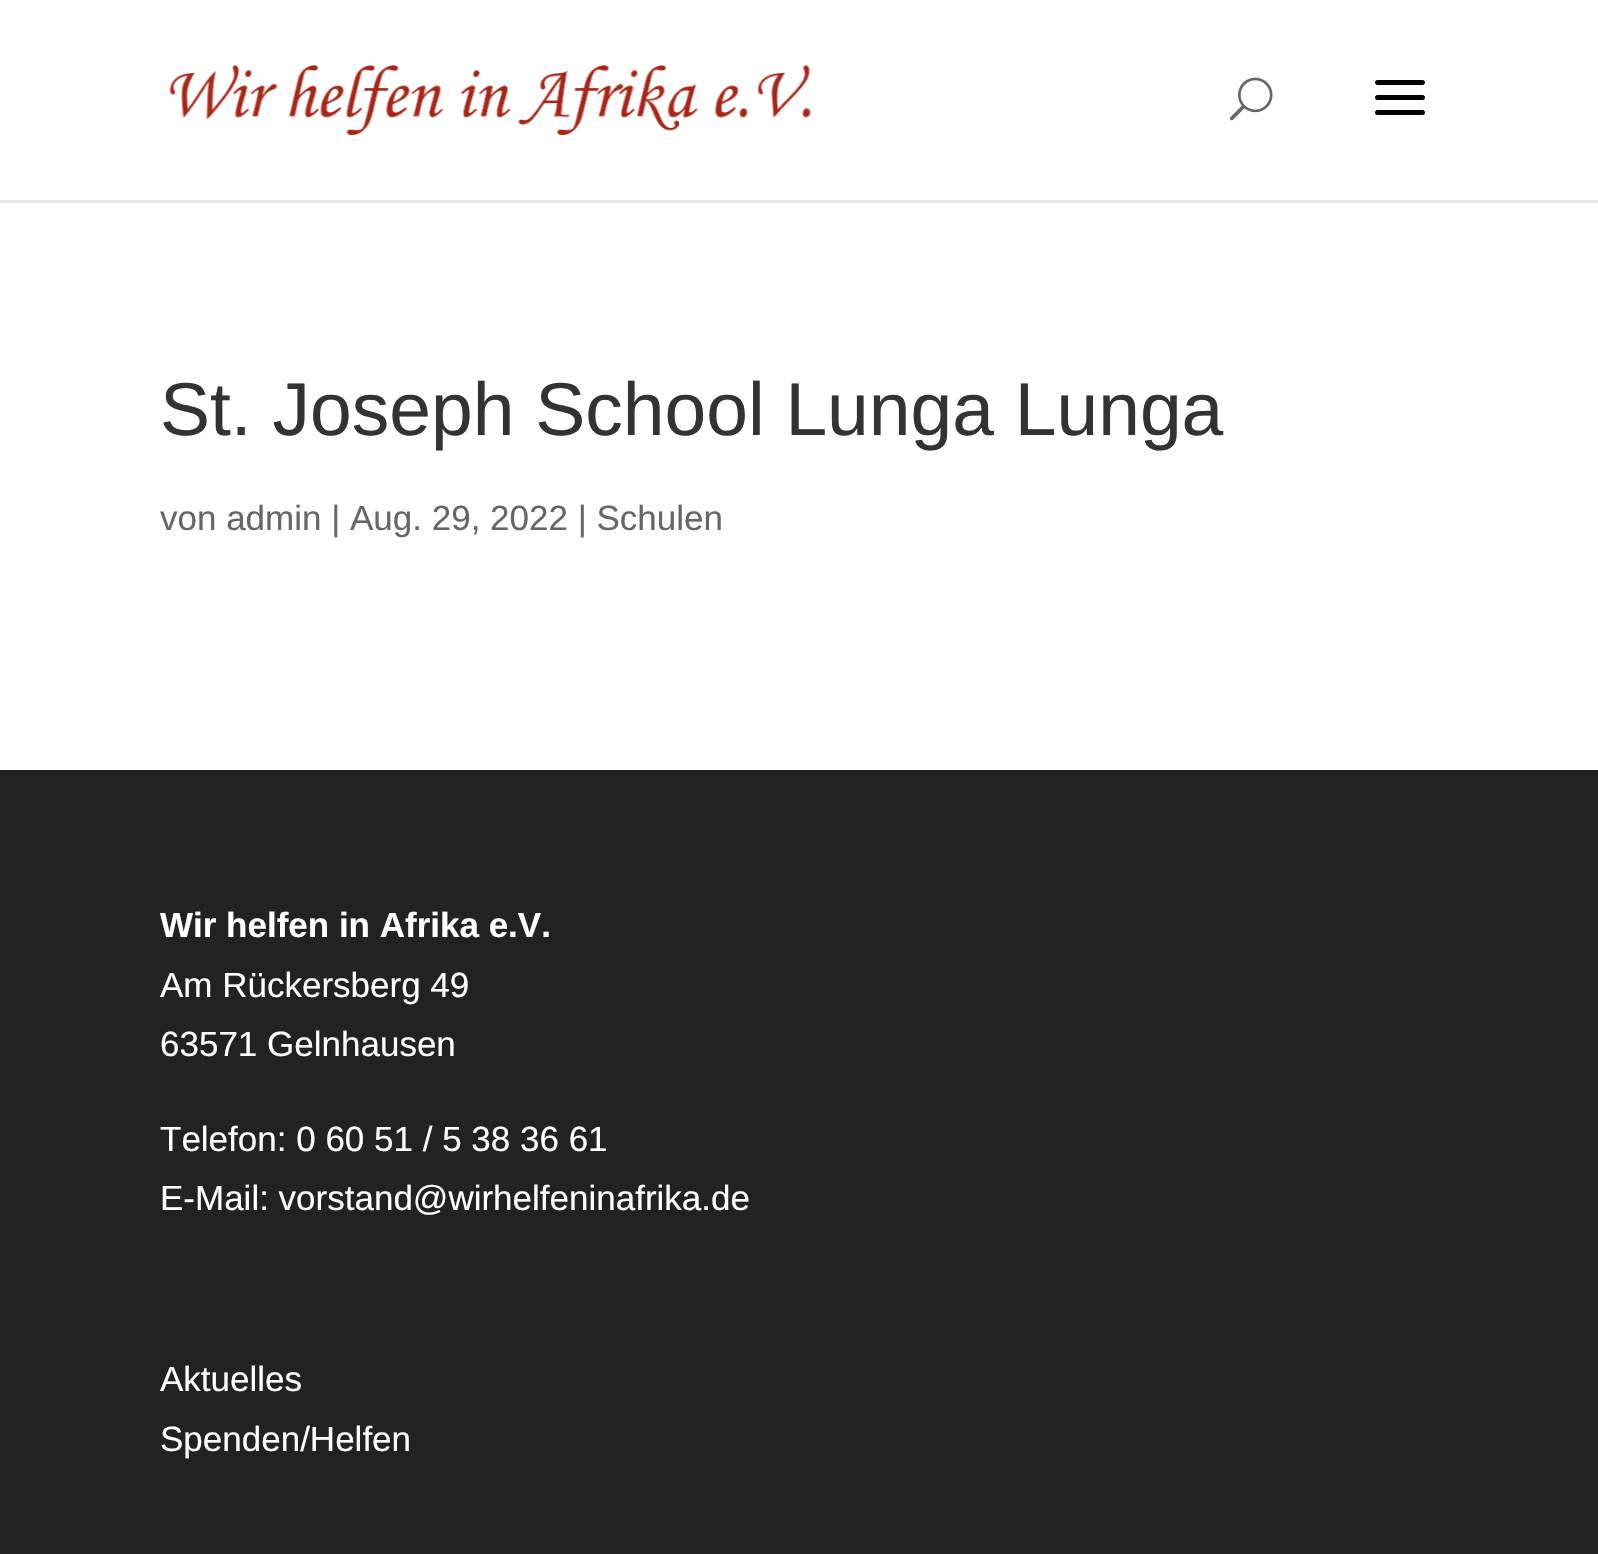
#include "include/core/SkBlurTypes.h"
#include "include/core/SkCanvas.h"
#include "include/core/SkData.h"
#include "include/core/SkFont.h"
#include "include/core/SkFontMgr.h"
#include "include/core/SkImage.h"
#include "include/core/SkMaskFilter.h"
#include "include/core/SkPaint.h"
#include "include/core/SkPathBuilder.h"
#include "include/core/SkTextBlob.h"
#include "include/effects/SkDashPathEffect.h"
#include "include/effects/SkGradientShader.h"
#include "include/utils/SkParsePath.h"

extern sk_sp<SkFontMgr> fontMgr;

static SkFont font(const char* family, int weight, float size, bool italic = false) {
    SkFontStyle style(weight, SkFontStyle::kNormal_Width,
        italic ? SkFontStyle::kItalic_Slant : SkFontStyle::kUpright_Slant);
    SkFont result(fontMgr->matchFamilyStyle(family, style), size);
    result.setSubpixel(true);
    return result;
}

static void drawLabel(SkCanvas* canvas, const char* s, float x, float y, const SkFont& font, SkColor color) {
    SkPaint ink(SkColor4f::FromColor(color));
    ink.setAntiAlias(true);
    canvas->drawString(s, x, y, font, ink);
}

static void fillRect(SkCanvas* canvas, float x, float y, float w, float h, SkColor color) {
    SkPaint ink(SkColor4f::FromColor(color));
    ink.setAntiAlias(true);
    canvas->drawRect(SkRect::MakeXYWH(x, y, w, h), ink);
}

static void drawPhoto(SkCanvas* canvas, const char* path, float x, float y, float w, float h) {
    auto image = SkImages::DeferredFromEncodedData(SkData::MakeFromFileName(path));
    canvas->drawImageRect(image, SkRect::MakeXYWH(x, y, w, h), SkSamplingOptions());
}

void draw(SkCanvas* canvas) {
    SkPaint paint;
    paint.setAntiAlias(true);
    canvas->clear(0xFFFFFFFF);
    fillRect(canvas, 0, 200, 1598, 3, 0xFFE6E6E6);
    drawPhoto(canvas, "assets/img1.png", 169, 65, 642, 70);
    drawPhoto(canvas, "assets/img2.png", 1229, 77, 44, 44);
    drawPhoto(canvas, "assets/img3.png", 1375, 80, 50, 35);
    SkFont font1 = font("Liberation Sans", 400, 75);
    drawLabel(canvas, "St. Joseph School Lunga Lunga", 160, 435, font1, 0xFF333333);
    SkFont font2 = font("Liberation Sans", 400, 35);
    drawLabel(canvas, "von admin | Aug. 29, 2022 | Schulen", 160, 530, font2, 0xFF666666);
    fillRect(canvas, 0, 770, 1598, 784, 0xFF222222);
    SkFont font3 = font("Liberation Sans", 700, 35);
    drawLabel(canvas, "Wir helfen in Afrika e.V.", 160, 937, font3, 0xFFFFFFFF);
    drawLabel(canvas, "Am Rückersberg 49", 160, 997, font2, 0xFFFFFFFF);
    drawLabel(canvas, "63571 Gelnhausen", 160, 1056, font2, 0xFFFFFFFF);
    drawLabel(canvas, "Telefon: 0 60 51 / 5 38 36 61", 160, 1151, font2, 0xFFFFFFFF);
    drawLabel(canvas, "E-Mail: vorstand@wirhelfeninafrika.de", 160, 1210, font2, 0xFFFFFFFF);
    drawLabel(canvas, "Aktuelles", 160, 1391, font2, 0xFFFFFFFF);
    drawLabel(canvas, "Spenden/Helfen", 160, 1451, font2, 0xFFFFFFFF);
}
